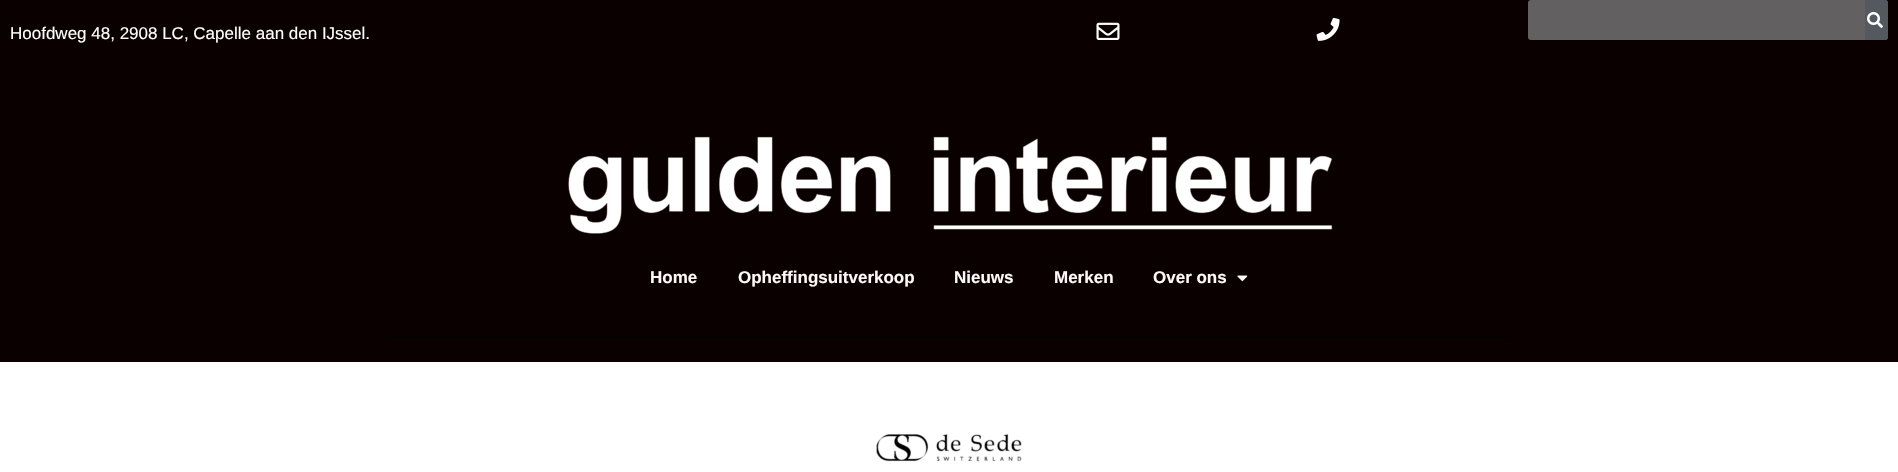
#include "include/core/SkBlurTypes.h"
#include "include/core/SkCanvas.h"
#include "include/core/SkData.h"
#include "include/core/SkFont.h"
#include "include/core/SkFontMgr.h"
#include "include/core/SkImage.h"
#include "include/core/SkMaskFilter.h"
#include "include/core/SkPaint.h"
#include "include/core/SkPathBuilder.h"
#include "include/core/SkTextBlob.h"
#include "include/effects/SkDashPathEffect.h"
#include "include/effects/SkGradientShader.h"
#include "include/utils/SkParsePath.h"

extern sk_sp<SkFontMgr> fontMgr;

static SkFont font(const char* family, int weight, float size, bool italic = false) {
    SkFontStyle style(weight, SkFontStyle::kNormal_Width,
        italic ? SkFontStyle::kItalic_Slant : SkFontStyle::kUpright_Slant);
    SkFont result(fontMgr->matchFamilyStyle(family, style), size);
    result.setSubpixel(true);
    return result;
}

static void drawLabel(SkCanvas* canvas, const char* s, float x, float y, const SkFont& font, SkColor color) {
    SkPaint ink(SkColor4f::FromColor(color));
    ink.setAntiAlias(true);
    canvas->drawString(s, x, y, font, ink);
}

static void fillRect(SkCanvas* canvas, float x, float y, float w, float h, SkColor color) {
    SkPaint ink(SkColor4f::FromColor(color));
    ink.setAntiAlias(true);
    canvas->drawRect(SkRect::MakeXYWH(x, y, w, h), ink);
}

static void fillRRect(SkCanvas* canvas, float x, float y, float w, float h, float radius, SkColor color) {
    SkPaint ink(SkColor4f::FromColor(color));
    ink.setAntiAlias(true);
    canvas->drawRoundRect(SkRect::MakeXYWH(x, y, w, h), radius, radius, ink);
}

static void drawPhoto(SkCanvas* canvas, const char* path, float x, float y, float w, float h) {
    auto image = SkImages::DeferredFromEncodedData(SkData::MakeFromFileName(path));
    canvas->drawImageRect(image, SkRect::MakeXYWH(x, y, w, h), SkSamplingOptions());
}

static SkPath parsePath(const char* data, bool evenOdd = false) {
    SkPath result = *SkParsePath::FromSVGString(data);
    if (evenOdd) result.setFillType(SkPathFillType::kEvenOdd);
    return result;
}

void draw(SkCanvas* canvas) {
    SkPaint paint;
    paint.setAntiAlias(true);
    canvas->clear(0xFFFFFFFF);
    fillRect(canvas, 0, 0, 1898, 362, 0xFF0A0000);
    SkFont font1 = font("Liberation Sans", 400, 17);
    drawLabel(canvas, "Hoofdweg 48, 2908 LC, Capelle aan den IJssel.", 10, 39, font1, 0xFFFFFFFF);
    drawPhoto(canvas, "assets/img1.png", 1096, 22, 24, 18);
    drawPhoto(canvas, "assets/img2.png", 1316, 17, 24, 24);
    fillRRect(canvas, 1528, 0, 360, 40, 3, 0xFF626060);
    paint.setColor(0xFF54595F);
    canvas->drawPath(parsePath("M1865 0H1885C1886.5 0 1888 1.5 1888 3V37C1888 38.5 1886.5 40 1885 40H1865Z"), paint);
    drawPhoto(canvas, "assets/img3.png", 1867, 12, 16, 16);
    drawPhoto(canvas, "assets/img4.png", 568, 136, 765, 98);
    SkFont font2 = font("Liberation Sans", 700, 17);
    drawLabel(canvas, "Home", 650, 283, font2, 0xFFFFF9F9);
    drawLabel(canvas, "Opheffingsuitverkoop", 738, 283, font2, 0xFFFFF9F9);
    drawLabel(canvas, "Nieuws", 954, 283, font2, 0xFFFFF9F9);
    drawLabel(canvas, "Merken", 1054, 283, font2, 0xFFFFF9F9);
    drawLabel(canvas, "Over ons", 1153, 283, font2, 0xFFFFF9F9);
    drawPhoto(canvas, "assets/img5.png", 1237, 275, 11, 7);
    fillRect(canvas, 389, 336, 1120, 1, 0xFF000000);
    drawPhoto(canvas, "assets/img6.png", 876, 434, 146, 28);
}
